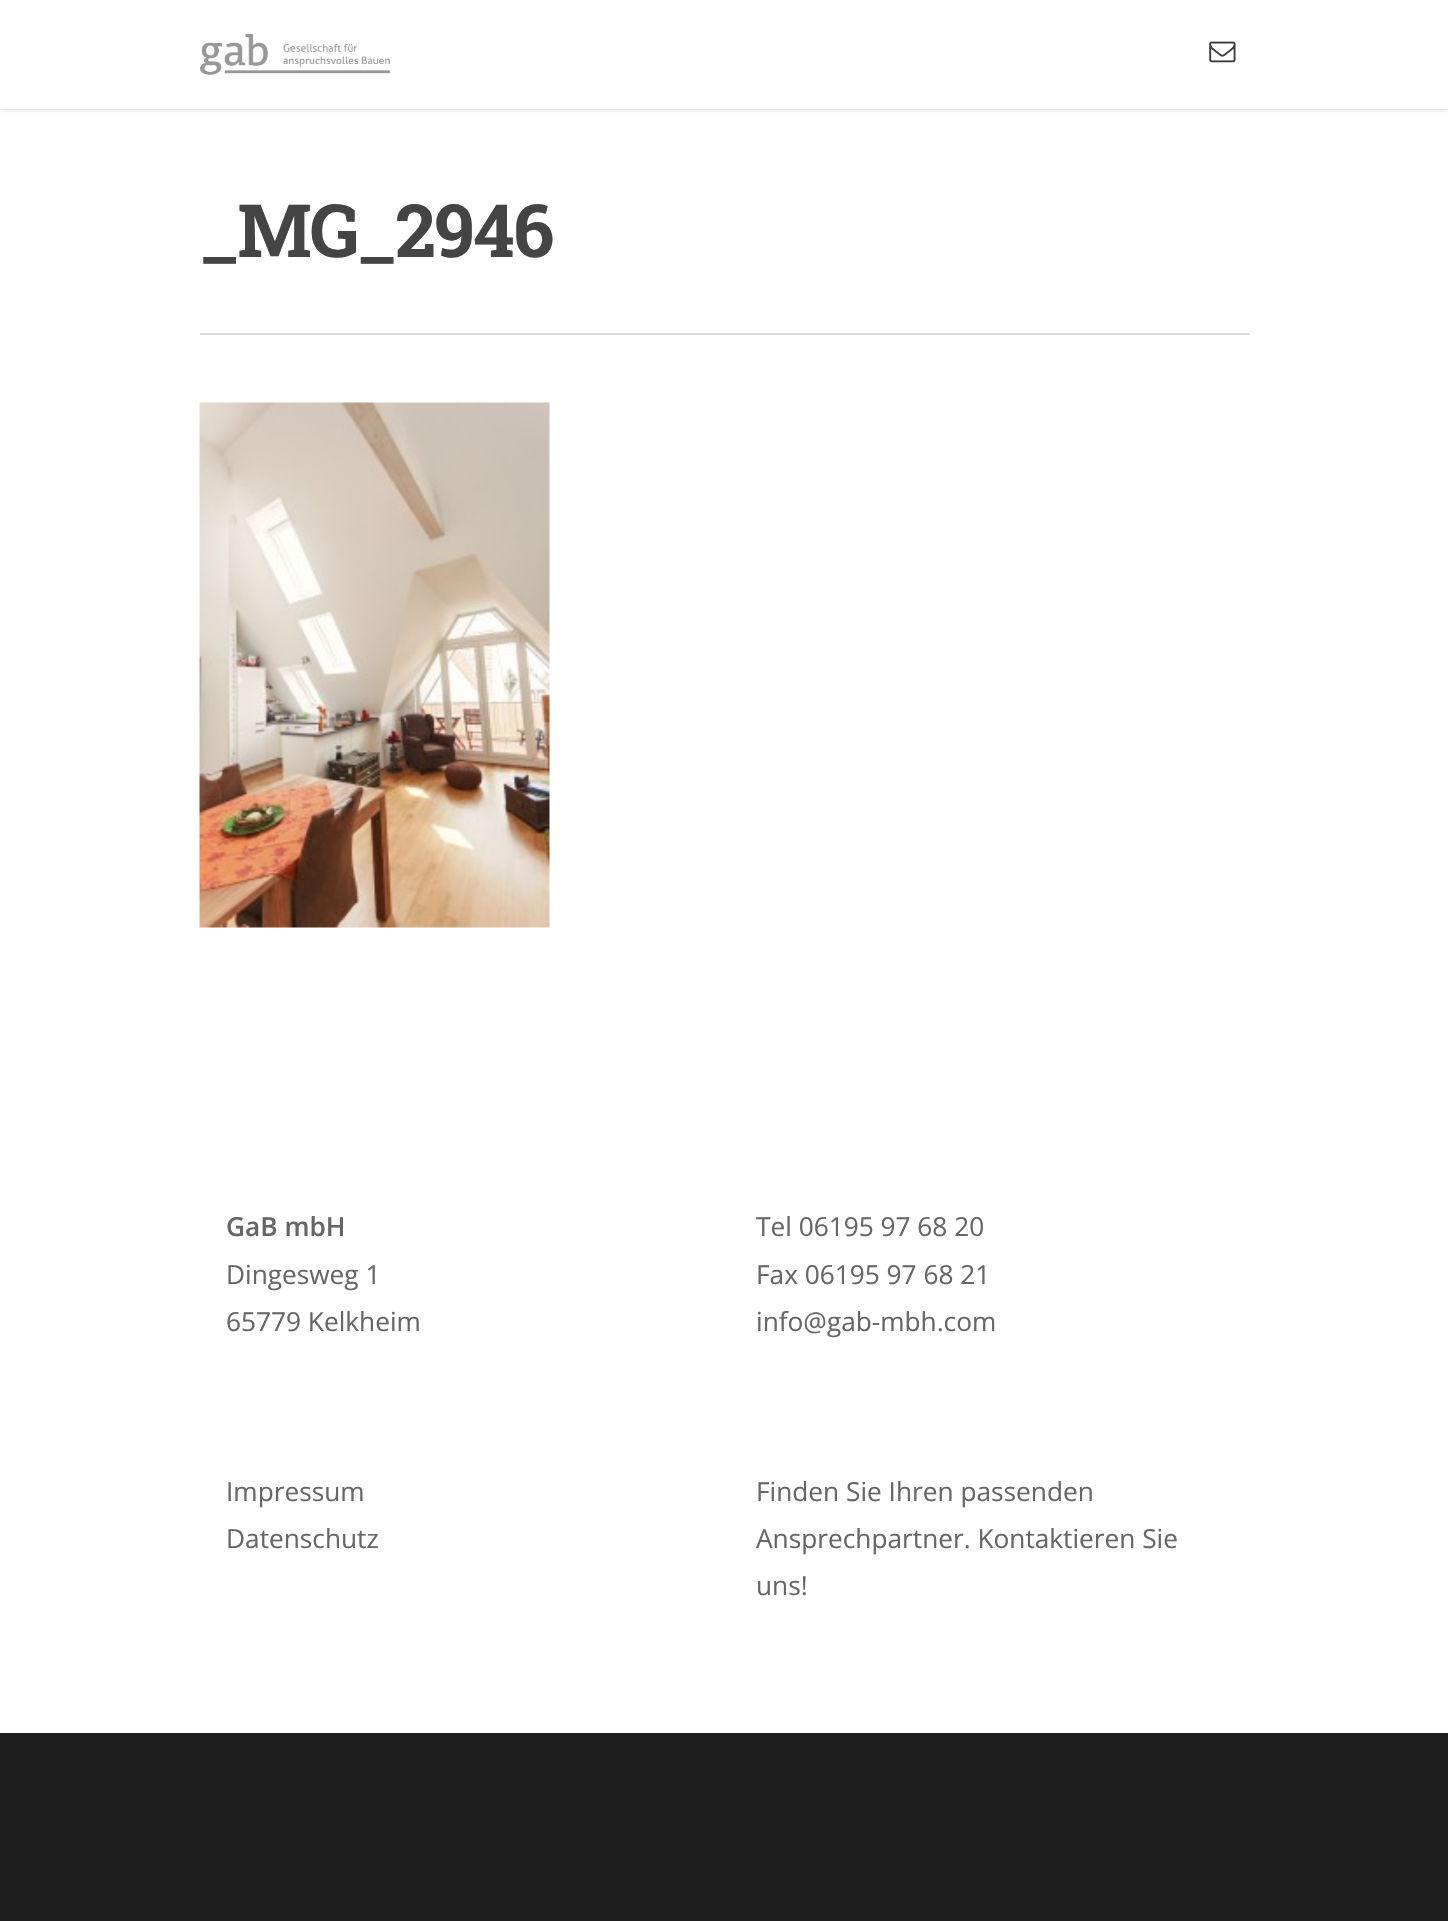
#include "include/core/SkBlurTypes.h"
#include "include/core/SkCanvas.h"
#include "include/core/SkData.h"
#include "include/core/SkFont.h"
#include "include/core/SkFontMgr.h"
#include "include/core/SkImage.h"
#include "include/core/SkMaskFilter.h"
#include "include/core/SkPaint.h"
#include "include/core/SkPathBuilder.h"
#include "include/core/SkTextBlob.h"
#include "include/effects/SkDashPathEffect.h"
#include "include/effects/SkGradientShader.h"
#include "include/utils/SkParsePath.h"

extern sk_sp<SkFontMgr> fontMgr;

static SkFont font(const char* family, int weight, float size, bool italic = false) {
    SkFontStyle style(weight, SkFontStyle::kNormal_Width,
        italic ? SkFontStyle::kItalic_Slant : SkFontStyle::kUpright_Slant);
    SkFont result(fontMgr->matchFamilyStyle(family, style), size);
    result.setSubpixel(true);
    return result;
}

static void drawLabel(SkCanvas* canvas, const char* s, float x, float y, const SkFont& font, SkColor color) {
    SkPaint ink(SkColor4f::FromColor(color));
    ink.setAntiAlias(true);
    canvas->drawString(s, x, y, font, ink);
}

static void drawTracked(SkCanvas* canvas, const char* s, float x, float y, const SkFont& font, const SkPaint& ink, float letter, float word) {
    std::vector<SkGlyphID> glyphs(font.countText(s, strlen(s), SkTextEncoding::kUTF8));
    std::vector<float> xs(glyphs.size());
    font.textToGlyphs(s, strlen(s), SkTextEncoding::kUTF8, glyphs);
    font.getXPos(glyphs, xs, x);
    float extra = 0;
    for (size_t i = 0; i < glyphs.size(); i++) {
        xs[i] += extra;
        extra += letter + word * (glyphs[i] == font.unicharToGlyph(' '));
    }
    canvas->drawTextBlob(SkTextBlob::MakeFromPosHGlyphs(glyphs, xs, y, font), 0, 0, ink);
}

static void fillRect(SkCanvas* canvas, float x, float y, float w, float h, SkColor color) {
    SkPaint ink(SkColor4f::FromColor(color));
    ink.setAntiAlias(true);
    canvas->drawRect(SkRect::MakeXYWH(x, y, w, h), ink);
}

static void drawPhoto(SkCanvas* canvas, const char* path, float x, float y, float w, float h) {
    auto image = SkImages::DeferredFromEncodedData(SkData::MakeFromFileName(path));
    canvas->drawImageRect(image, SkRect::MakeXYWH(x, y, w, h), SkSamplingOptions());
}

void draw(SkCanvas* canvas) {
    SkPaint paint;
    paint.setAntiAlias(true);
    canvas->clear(0xFF1F1F1F);
    fillRect(canvas, 0, 109, 1448, 1624, 0xFFFFFFFF);
    paint.setColor(0x38000000);
    paint.setMaskFilter(SkMaskFilter::MakeBlur(kNormal_SkBlurStyle, 2.5f));
    canvas->drawRect(SkRect::MakeXYWH(0, 0, 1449, 109), paint);
    paint.setMaskFilter(nullptr);
    fillRect(canvas, 0, 0, 1448, 109, 0xFFFFFFFF);
    drawPhoto(canvas, "assets/img1.png", 200, 34, 190, 41);
    drawPhoto(canvas, "assets/img2.png", 1209, 41, 27, 22);
    fillRect(canvas, 200, 333, 1050, 2, 0xFFDDDDDD);
    SkFont font1 = font("Roboto Slab", 700, 73.5f);
    paint.setColor(0xFF444444);
    drawTracked(canvas, "_MG_2946", 200, 257, font1, paint, -1.75f, 0);
    drawPhoto(canvas, "assets/img3.png", 199, 402, 351, 526);
    SkFont font2 = font("Open Sans", 600, 26.25f);
    drawLabel(canvas, "GaB mbH", 226, 1236, font2, 0xFF666666);
    SkFont font3 = font("Open Sans", 400, 26.25f);
    drawLabel(canvas, "Dingesweg 1", 226, 1284, font3, 0xFF666666);
    drawLabel(canvas, "65779 Kelkheim", 226, 1331, font3, 0xFF666666);
    drawLabel(canvas, "Tel 06195 97 68 20", 756, 1236, font3, 0xFF666666);
    drawLabel(canvas, "Fax 06195 97 68 21", 756, 1284, font3, 0xFF666666);
    drawLabel(canvas, "info@gab-mbh.com", 756, 1331, font3, 0xFF666666);
    drawLabel(canvas, "Impressum", 226, 1501, font3, 0xFF666666);
    drawLabel(canvas, "Datenschutz", 226, 1548, font3, 0xFF666666);
    drawLabel(canvas, "Finden Sie Ihren passenden", 756, 1501, font3, 0xFF666666);
    drawLabel(canvas, "Ansprechpartner. Kontaktieren Sie", 756, 1548, font3, 0xFF666666);
    drawLabel(canvas, "uns!", 756, 1595, font3, 0xFF666666);
}
